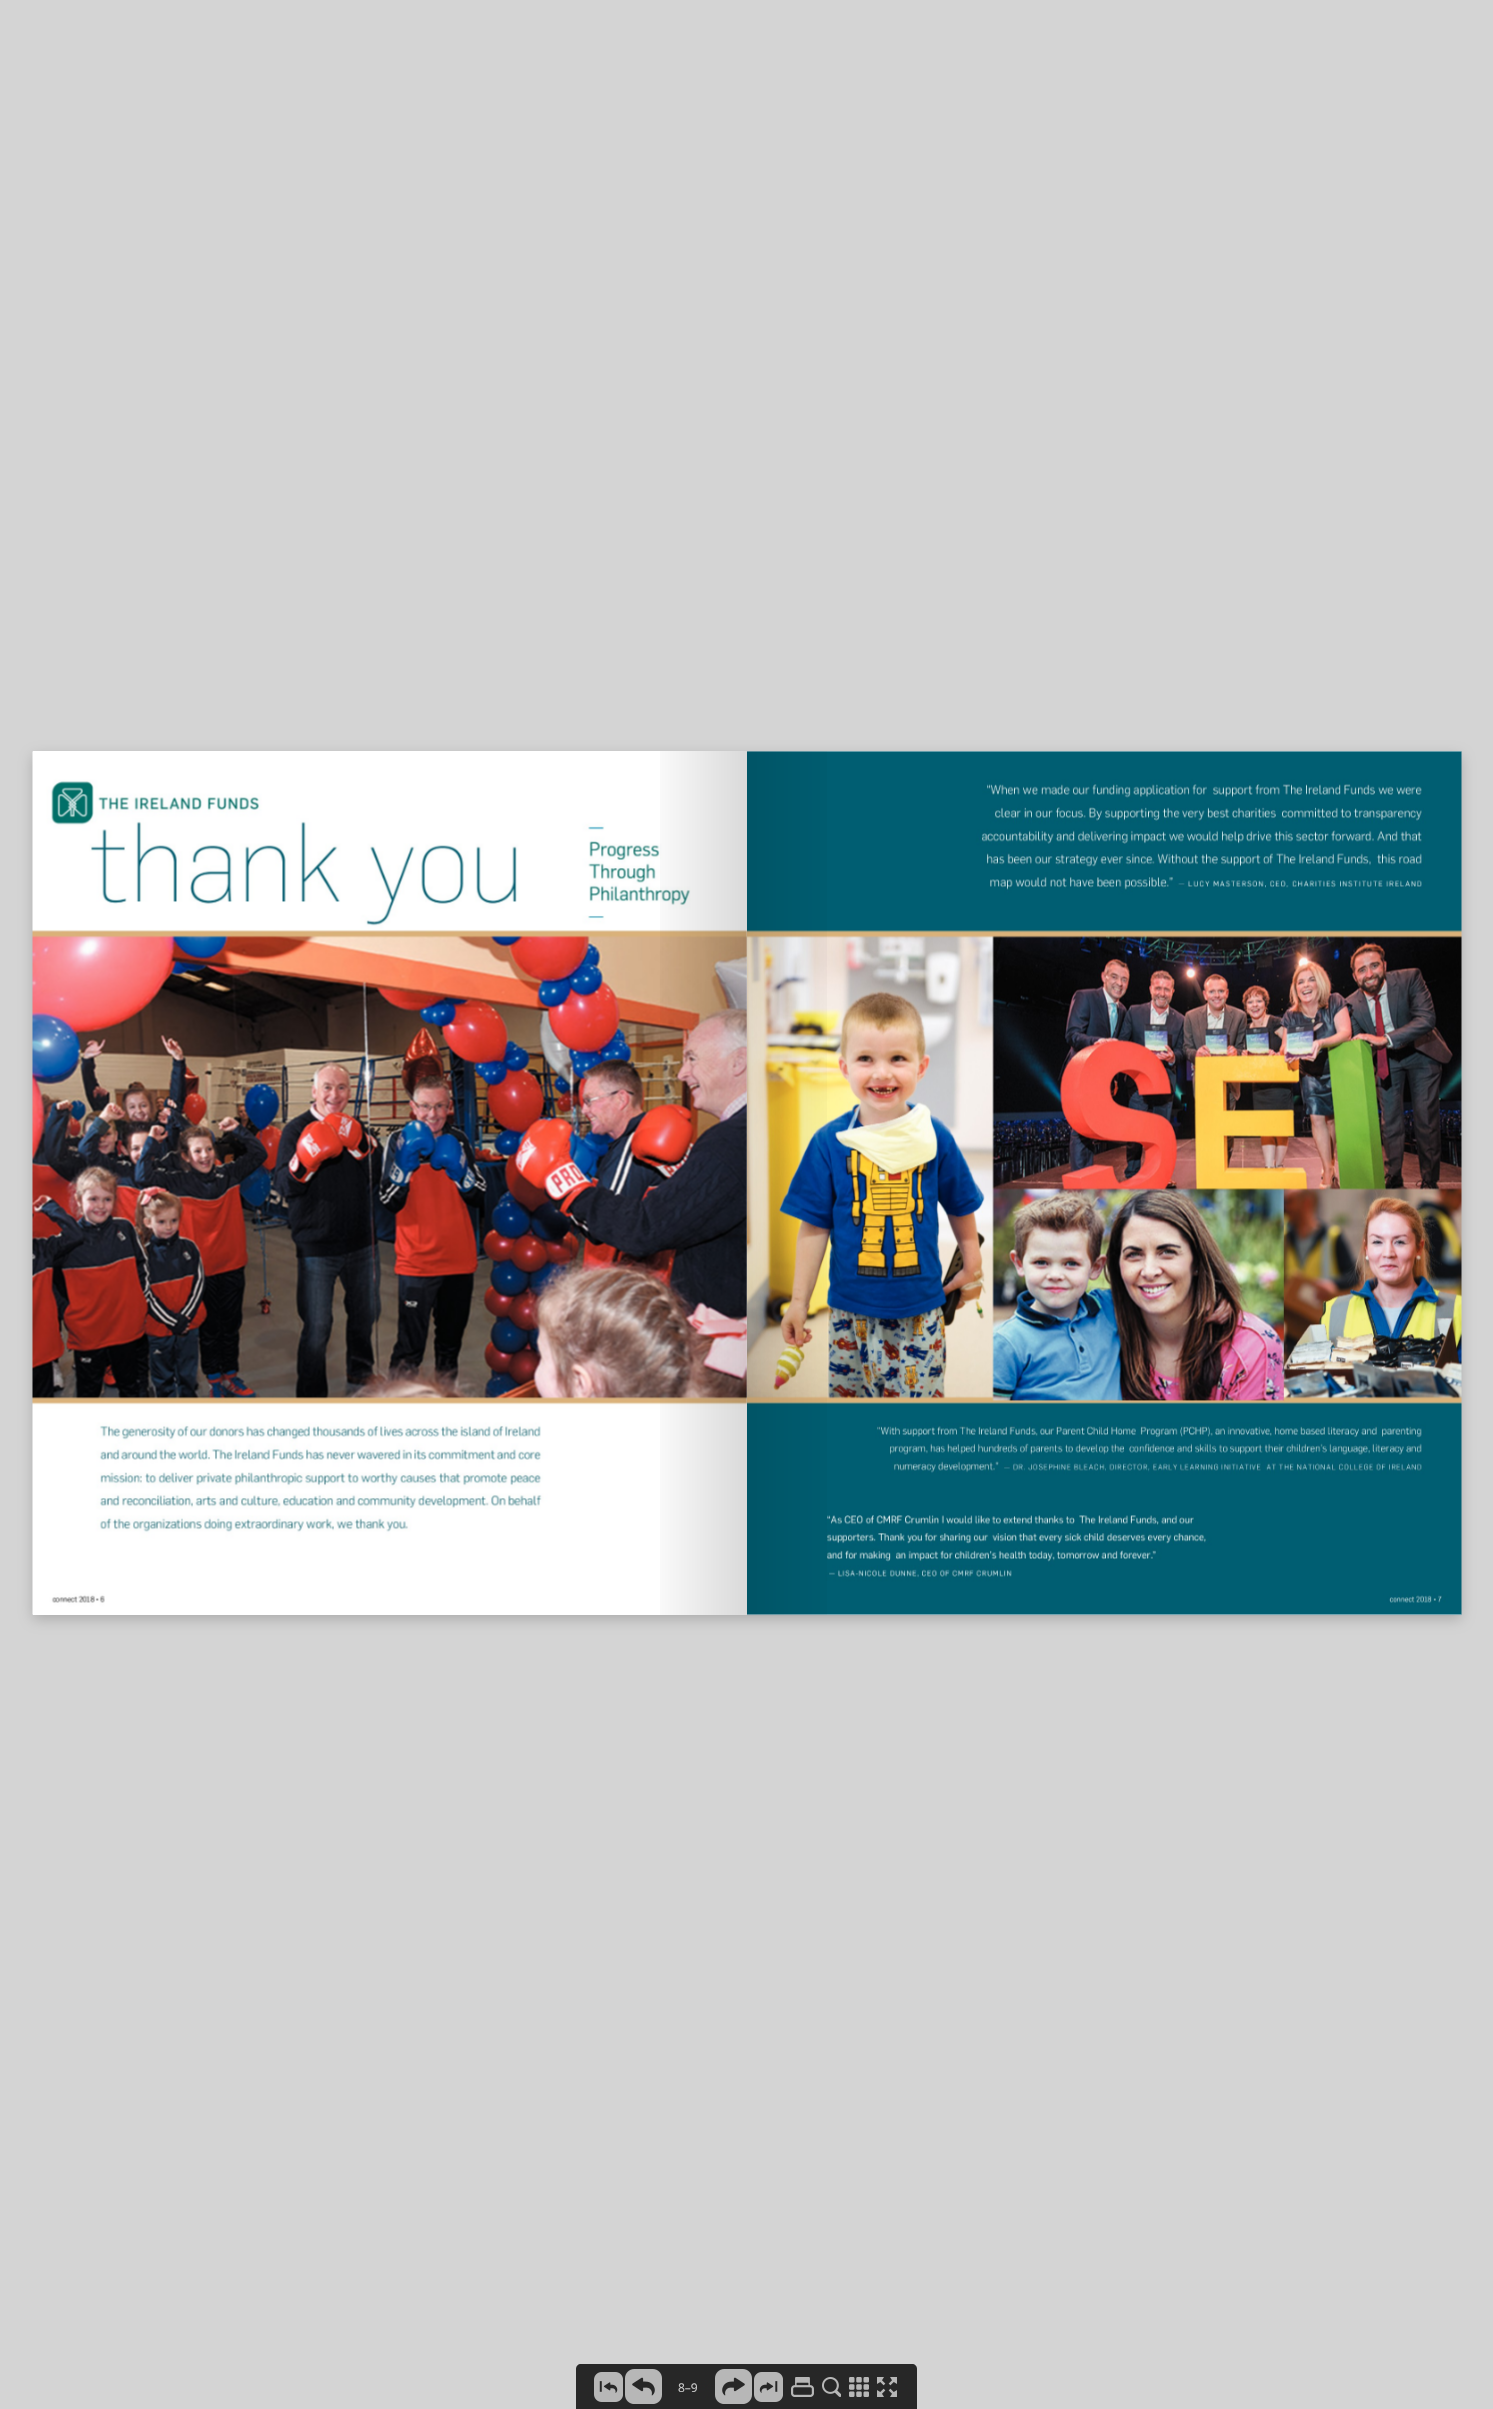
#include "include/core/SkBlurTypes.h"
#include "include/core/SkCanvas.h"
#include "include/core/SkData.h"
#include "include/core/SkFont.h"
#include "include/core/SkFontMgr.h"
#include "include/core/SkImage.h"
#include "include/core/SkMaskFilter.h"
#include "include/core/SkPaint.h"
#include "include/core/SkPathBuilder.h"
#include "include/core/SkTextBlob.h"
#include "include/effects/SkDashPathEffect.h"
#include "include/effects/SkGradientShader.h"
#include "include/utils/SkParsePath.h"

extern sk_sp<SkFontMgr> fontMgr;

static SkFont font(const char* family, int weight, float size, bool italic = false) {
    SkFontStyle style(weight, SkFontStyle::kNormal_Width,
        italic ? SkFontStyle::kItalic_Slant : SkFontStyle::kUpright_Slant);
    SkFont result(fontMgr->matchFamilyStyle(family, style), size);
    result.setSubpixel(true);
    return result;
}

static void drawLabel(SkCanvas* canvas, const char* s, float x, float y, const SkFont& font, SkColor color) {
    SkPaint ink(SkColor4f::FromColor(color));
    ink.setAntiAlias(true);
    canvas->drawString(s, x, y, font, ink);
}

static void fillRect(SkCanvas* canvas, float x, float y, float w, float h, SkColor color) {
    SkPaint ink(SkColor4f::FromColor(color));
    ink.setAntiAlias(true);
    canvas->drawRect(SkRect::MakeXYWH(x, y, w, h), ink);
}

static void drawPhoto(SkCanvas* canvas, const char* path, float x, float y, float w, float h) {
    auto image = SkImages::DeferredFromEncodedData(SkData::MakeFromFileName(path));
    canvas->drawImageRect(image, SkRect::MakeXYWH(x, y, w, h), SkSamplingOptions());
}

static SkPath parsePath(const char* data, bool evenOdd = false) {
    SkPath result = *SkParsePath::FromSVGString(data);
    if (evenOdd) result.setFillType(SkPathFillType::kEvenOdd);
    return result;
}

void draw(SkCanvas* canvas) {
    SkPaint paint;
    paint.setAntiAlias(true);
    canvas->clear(0xFFD4D4D4);
    paint.setColor(0xFFAAAAAA);
    paint.setMaskFilter(SkMaskFilter::MakeBlur(kNormal_SkBlurStyle, 6.5f));
    canvas->drawRect(SkRect::MakeXYWH(33, 756, 1428, 863), paint);
    paint.setMaskFilter(nullptr);
    fillRect(canvas, 33, 751, 1428, 864, 0xFFFFFFFF);
    drawPhoto(canvas, "assets/img1.png", 32, 751, 715, 864);
    {
        const SkColor colors[] = {0x00000000, 0x26000000};
        const float stops[] = {0, 1};
        const SkPoint ends[] = {{645, 1183}, {747, 1183}};
        paint.setShader(SkGradientShader::MakeLinear(ends, colors, stops, 2, SkTileMode::kClamp));
        paint.setAlpha(255);
    }
    canvas->drawRect(SkRect::MakeXYWH(660, 751, 87, 864), paint);
    drawPhoto(canvas, "assets/img2.png", 747, 751, 715, 865);
    {
        const SkColor colors[] = {0x1A000000, 0x00000000};
        const float stops[] = {0, 1};
        const SkPoint ends[] = {{747, 1183}, {849, 1183}};
        paint.setShader(SkGradientShader::MakeLinear(ends, colors, stops, 2, SkTileMode::kClamp));
        paint.setAlpha(255);
    }
    canvas->drawRect(SkRect::MakeXYWH(747, 751, 80, 864), paint);
    paint.setShader(nullptr);
    paint.setColor(0xFF272727);
    canvas->drawPath(parsePath("M581 2364H912C915 2364 917 2366 917 2369V2409H576V2369C576 2366 578 2364 581 2364Z"), paint);
    drawPhoto(canvas, "assets/img3.png", 594, 2372, 29, 30);
    drawPhoto(canvas, "assets/img4.png", 625, 2369, 37, 35);
    SkFont font1 = font("Open Sans", 400, 12);
    drawLabel(canvas, "8–9", 678, 2392, font1, 0xFFCCCCCC);
    drawPhoto(canvas, "assets/img5.png", 715, 2369, 37, 35);
    drawPhoto(canvas, "assets/img6.png", 754, 2372, 29, 30);
    drawPhoto(canvas, "assets/img7.png", 791, 2377, 23, 20);
    drawPhoto(canvas, "assets/img8.png", 822, 2377, 19, 20);
    drawPhoto(canvas, "assets/img9.png", 849, 2377, 20, 20);
    drawPhoto(canvas, "assets/img10.png", 877, 2377, 20, 20);
}
